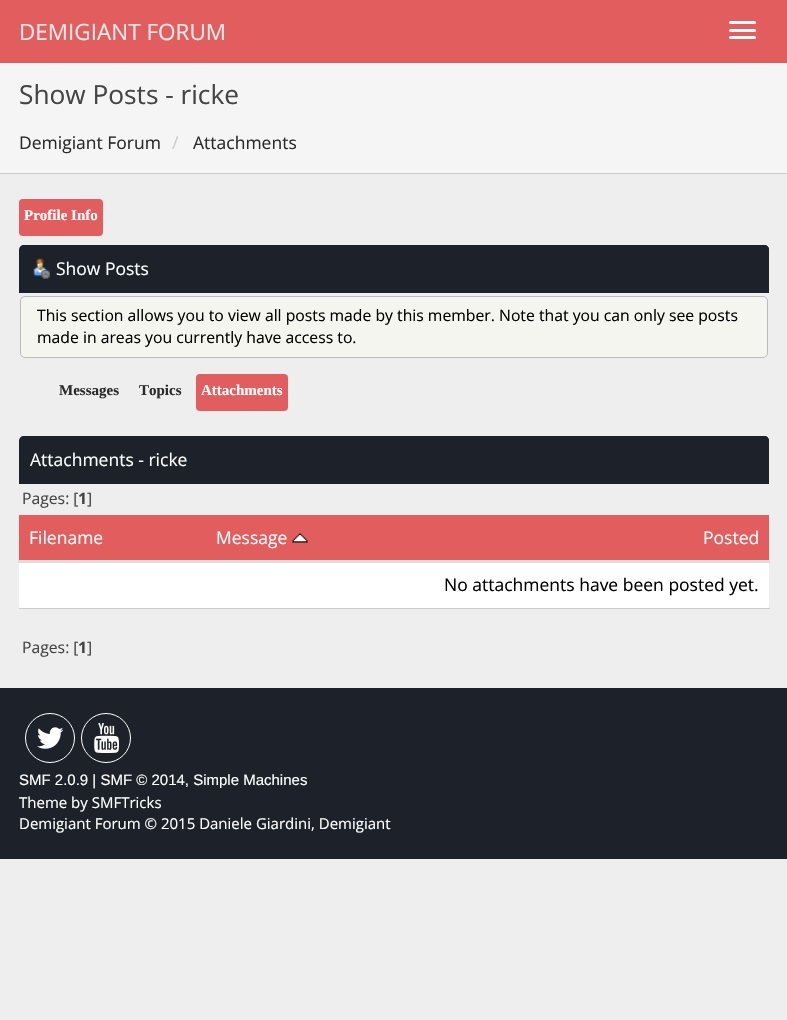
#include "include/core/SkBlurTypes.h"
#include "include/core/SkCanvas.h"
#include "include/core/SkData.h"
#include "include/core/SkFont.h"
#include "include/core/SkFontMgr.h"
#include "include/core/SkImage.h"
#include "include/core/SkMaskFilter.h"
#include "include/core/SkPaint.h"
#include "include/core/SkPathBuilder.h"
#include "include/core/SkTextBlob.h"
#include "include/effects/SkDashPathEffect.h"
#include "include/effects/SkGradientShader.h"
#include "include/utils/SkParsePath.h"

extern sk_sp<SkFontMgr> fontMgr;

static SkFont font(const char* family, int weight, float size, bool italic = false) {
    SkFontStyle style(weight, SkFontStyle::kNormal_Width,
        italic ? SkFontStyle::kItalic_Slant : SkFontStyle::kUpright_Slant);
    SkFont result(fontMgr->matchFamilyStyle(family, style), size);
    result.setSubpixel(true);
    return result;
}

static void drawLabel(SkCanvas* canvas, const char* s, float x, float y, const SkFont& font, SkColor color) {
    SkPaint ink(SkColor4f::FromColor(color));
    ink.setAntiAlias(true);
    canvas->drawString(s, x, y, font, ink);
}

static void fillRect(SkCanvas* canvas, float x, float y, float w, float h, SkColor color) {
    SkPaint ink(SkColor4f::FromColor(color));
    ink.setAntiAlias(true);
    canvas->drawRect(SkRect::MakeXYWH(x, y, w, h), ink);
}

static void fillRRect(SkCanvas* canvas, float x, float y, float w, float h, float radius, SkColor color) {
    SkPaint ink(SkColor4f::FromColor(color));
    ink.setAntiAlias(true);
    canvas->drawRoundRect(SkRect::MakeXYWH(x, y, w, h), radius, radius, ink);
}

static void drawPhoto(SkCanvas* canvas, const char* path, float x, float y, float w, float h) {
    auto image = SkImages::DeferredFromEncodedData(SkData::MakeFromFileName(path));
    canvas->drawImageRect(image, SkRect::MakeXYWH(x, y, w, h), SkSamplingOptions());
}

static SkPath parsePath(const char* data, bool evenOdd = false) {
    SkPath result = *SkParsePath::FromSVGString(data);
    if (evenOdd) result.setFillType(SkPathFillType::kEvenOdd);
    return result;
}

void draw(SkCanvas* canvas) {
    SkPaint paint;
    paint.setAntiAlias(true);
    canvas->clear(0xFFEEEEEE);
    fillRect(canvas, 0, 0, 787, 63, 0xFFE25D5D);
    SkFont font1 = font("Open Sans", 400, 22.5f);
    drawLabel(canvas, "DEMIGIANT FORUM", 19, 40, font1, 0xFFE9E9E9);
    fillRRect(canvas, 729, 21, 27, 3, 1.5f, 0xFFFFFFFF);
    fillRRect(canvas, 729, 29, 27, 3, 1.5f, 0xFFFFFFFF);
    fillRRect(canvas, 729, 36, 27, 3, 1.5f, 0xFFFFFFFF);
    fillRect(canvas, 0, 63, 787, 110, 0xFFF5F5F5);
    fillRect(canvas, 0, 173, 787, 1, 0xFFCCCCCC);
    SkFont font2 = font("Open Sans", 400, 26.25f);
    drawLabel(canvas, "Show Posts - ricke", 19, 104, font2, 0xFF444444);
    SkFont font3 = font("Open Sans", 400, 17.5f);
    drawLabel(canvas, "Demigiant Forum", 19, 149, font3, 0xFF2A2A2A);
    drawLabel(canvas, "/", 172, 149, font3, 0xFFCCCCCC);
    drawLabel(canvas, "Attachments", 193, 149, font3, 0xFF2A2A2A);
    fillRRect(canvas, 19, 199, 84, 37, 4, 0xFFE25D5D);
    SkFont font4 = font("Liberation Serif", 700, 15);
    drawLabel(canvas, "Profile Info", 24, 220, font4, 0xFFFFFFFF);
    paint.setColor(0xFF1D212A);
    canvas->drawPath(parsePath("M24 245H764C767 245 769 247 769 250V293H19V250C19 247 21 245 24 245Z"), paint);
    canvas->drawPath(parsePath("M30 245H764C767 245 769 247 769 250V293H30Z"), paint);
    drawPhoto(canvas, "assets/img1.png", 33, 258, 17, 21);
    drawLabel(canvas, "Show Posts", 56, 275, font3, 0xFFFFFFFF);
    paint.setColor(0xFFF5F5F0);
    canvas->drawRoundRect(SkRect::MakeXYWH(20.5f, 296.5f, 747, 61), 4.5f, 4.5f, paint);
    paint.setStroke(true);
    paint.setStrokeWidth(1);
    paint.setColor(0xFFBBBBBB);
    canvas->drawRoundRect(SkRect::MakeXYWH(20.5f, 296.5f, 747, 61), 4.5f, 4.5f, paint);
    SkFont font5 = font("Open Sans", 400, 15.75f);
    drawLabel(canvas, "This section allows you to view all posts made by this member. Note that you can only see posts", 37, 321, font5, 0xFF000000);
    drawLabel(canvas, "made in areas you currently have access to.", 37, 343, font5, 0xFF000000);
    drawLabel(canvas, "Messages", 59, 395, font4, 0xFF2A2A2A);
    drawLabel(canvas, "Topics", 139, 395, font4, 0xFF2A2A2A);
    fillRRect(canvas, 196, 374, 92, 37, 4, 0xFFE25D5D);
    drawLabel(canvas, "Attachments", 201, 395, font4, 0xFFFFFFFF);
    paint.setStroke(false);
    paint.setColor(0xFF1D212A);
    canvas->drawPath(parsePath("M24 436H764C767 436 769 438 769 441V484H19V441C19 438 21 436 24 436Z"), paint);
    canvas->drawPath(parsePath("M30 436H764C767 436 769 438 769 441V484H30Z"), paint);
    drawLabel(canvas, "Attachments - ricke", 30, 466, font3, 0xFFFFFFFF);
    drawLabel(canvas, "Pages: [", 22, 504, font5, 0xFF444444);
    SkFont font6 = font("Open Sans", 700, 15.75f);
    drawLabel(canvas, "1", 78, 504, font6, 0xFF444444);
    drawLabel(canvas, "]", 87, 504, font5, 0xFF444444);
    fillRect(canvas, 19, 515, 750, 45, 0xFFE25D5D);
    drawLabel(canvas, "Filename", 29, 544, font3, 0xFFFFFFFF);
    drawLabel(canvas, "Message", 216, 544, font3, 0xFFFFFFFF);
    drawPhoto(canvas, "assets/img2.png", 292, 533, 16, 10);
    fillRect(canvas, 19, 563, 750, 45, 0xFFF9F9F9);
    fillRRect(canvas, 19, 561, 750, 48, 5, 0xFFFFFFFF);
    fillRect(canvas, 18, 560, 752, 3, 0xFFDDDDDD);
    drawLabel(canvas, "Posted", 703, 544, font3, 0xFFFFFFFF);
    fillRect(canvas, 19, 608, 751, 1, 0xFFCCCCCC);
    drawLabel(canvas, "No attachments have been posted yet.", 444, 591, font3, 0xFF000000);
    drawLabel(canvas, "Pages: [", 22, 653, font5, 0xFF444444);
    drawLabel(canvas, "1", 78, 653, font6, 0xFF444444);
    drawLabel(canvas, "]", 87, 653, font5, 0xFF444444);
    fillRect(canvas, 0, 688, 787, 171, 0xFF1D212A);
    paint.setStroke(true);
    paint.setColor(0xFFFFFFFF);
    canvas->drawCircle(50, 738, 24.5f, paint);
    drawPhoto(canvas, "assets/img3.png", 37, 727, 27, 22);
    canvas->drawCircle(106, 738, 24.5f, paint);
    drawPhoto(canvas, "assets/img4.png", 94, 723, 25, 30);
    SkFont font7 = font("Liberation Sans", 400, 15);
    drawLabel(canvas, "SMF 2.0.9 | SMF © 2014, Simple Machines", 19, 785, font7, 0xFFFFFFFF);
    SkFont font8 = font("Open Sans", 400, 15);
    drawLabel(canvas, "Theme by SMFTricks", 19, 808, font8, 0xFFFFFFFF);
    drawLabel(canvas, "Demigiant Forum © 2015 Daniele Giardini, Demigiant", 19, 829, font8, 0xFFFFFFFF);
}
